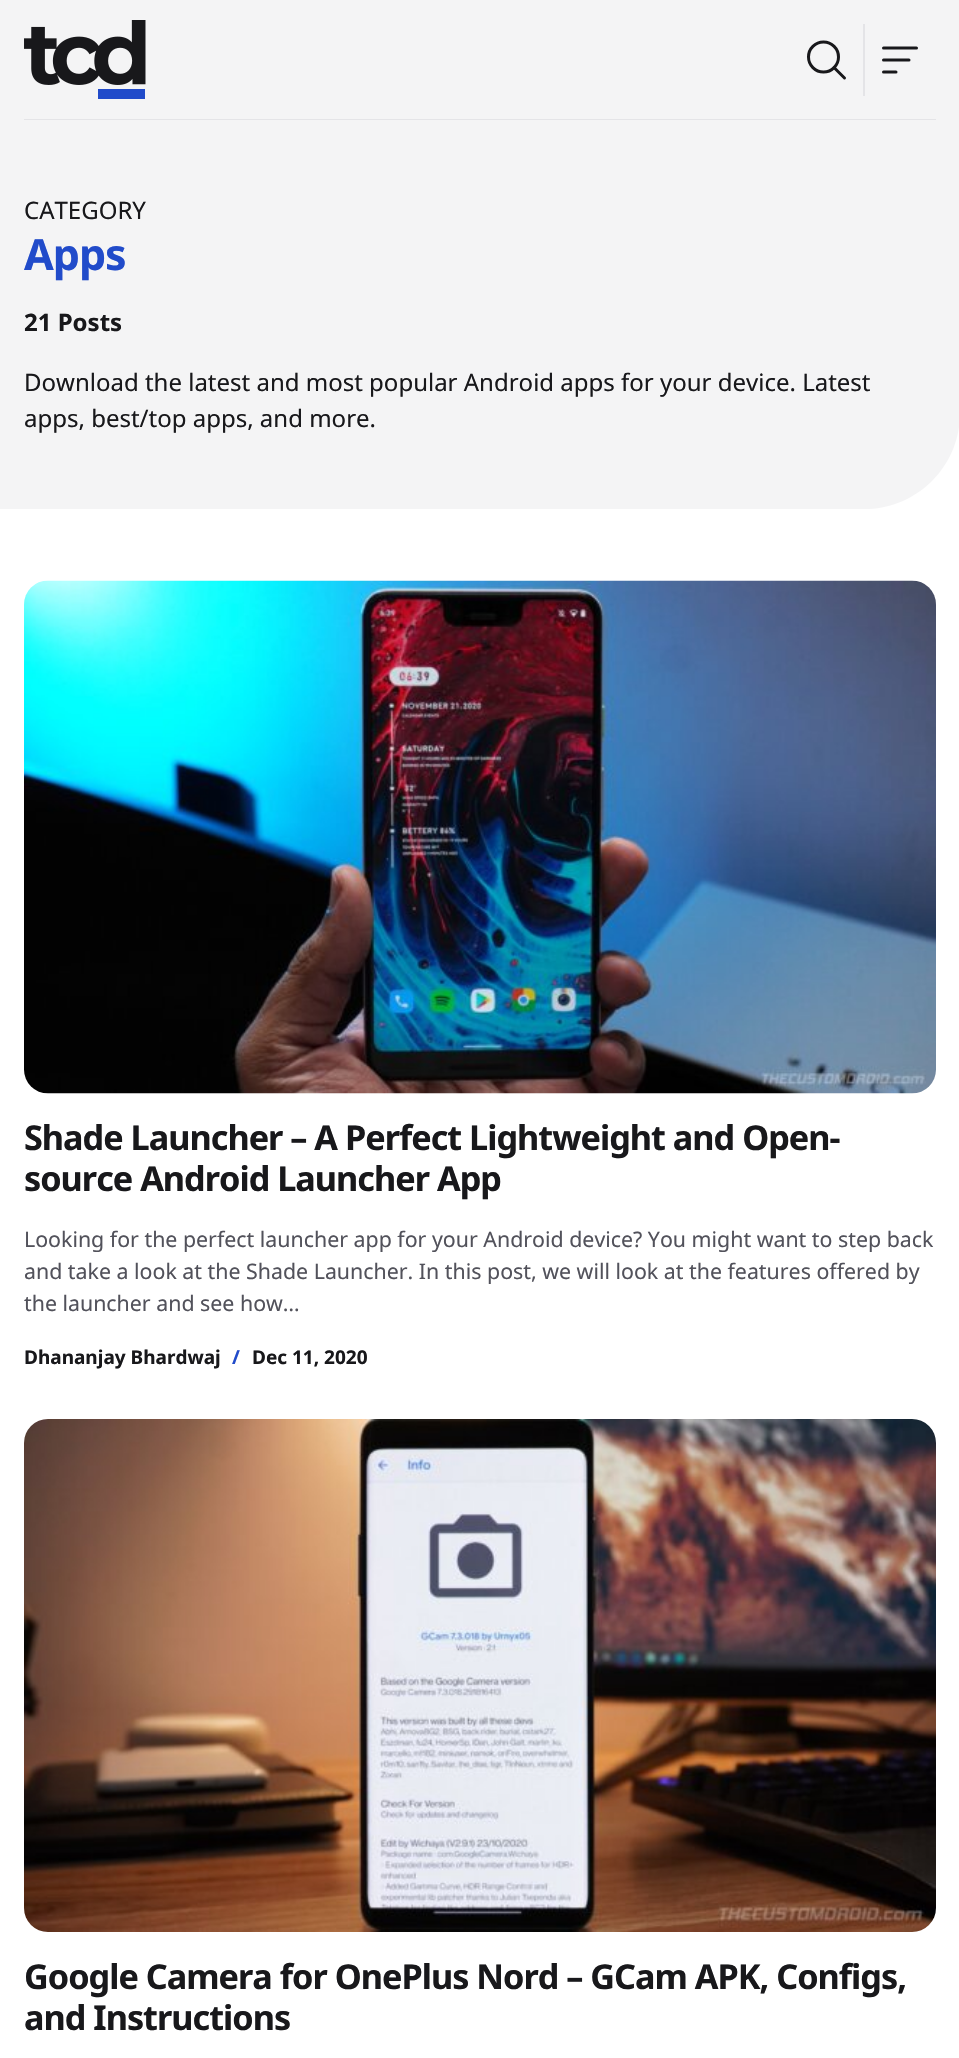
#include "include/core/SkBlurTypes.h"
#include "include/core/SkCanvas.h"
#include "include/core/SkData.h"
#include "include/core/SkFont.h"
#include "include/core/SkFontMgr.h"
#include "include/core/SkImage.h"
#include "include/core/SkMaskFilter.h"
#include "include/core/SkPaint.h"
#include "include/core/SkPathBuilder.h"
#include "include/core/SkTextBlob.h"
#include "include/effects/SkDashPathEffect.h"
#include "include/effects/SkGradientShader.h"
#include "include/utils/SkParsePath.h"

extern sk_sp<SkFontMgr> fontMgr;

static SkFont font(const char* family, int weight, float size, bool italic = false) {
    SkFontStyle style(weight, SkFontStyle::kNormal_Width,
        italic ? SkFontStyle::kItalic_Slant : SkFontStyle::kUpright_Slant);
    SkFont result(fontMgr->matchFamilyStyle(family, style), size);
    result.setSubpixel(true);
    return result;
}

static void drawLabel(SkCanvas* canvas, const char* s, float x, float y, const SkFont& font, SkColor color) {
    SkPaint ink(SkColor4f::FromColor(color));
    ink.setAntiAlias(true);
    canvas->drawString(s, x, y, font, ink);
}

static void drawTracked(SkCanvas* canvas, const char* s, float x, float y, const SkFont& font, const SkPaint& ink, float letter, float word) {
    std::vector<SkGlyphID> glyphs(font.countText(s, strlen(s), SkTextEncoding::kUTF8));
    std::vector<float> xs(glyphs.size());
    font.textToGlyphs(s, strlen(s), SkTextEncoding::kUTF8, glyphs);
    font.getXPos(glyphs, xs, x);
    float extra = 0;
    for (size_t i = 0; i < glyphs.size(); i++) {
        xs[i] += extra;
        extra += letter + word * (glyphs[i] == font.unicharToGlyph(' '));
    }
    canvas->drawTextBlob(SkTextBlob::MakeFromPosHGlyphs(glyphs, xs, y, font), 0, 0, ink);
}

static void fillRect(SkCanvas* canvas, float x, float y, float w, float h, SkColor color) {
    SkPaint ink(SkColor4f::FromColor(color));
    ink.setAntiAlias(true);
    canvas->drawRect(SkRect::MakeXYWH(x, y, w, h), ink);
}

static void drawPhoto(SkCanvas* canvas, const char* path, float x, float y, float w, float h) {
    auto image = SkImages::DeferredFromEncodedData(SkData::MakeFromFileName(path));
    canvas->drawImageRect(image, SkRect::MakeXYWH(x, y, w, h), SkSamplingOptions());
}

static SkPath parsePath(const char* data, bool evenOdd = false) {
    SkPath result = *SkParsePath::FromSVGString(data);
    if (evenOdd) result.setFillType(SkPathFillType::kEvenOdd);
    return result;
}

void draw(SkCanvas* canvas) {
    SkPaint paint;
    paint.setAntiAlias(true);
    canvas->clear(0xFFFFFFFF);
    fillRect(canvas, 0, 0, 959, 120, 0xFFF4F4F5);
    fillRect(canvas, 24, 119, 912, 1, 0xFFE4E4E7);
    drawPhoto(canvas, "assets/img1.png", 24, 20, 122, 79);
    paint.setStroke(true);
    paint.setStrokeWidth(3);
    paint.setColor(0xFF18181B);
    canvas->drawCircle(823.5f, 57, 15, paint);
    paint.setStrokeCap(SkPaint::kRound_Cap);
    paint.setStrokeJoin(SkPaint::kRound_Join);
    canvas->drawPath(parsePath("M834 67.5L844.5 78"), paint);
    fillRect(canvas, 863, 24, 2, 72, 0xFFE4E4E7);
    canvas->drawPath(parsePath("M883.5 48H916.5M883.5 60H909M883.5 72H896"), paint);
    paint.setStroke(false);
    paint.setColor(0xFFF4F4F5);
    canvas->drawPath(parsePath("M0 120H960V413C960 466 917 509 864 509H0Z"), paint);
    SkFont font1 = font("Noto Sans", 400, 24);
    drawLabel(canvas, "CATEGORY", 24, 219, font1, 0xFF18181B);
    SkFont font2 = font("Noto Sans", 700, 43);
    paint.setColor(0xFF214BCA);
    drawTracked(canvas, "Apps", 24, 270, font2, paint, -1, 0);
    SkFont font3 = font("Noto Sans", 700, 24);
    drawLabel(canvas, "21 Posts", 24, 331, font3, 0xFF18181B);
    drawLabel(canvas, "Download the latest and most popular Android apps for your device. Latest", 24, 391, font1, 0xFF18181B);
    drawLabel(canvas, "apps, best/top apps, and more.", 24, 427, font1, 0xFF18181B);
    drawPhoto(canvas, "assets/img2.png", 24, 580, 912, 514);
    SkFont font4 = font("Noto Sans", 700, 34.2f);
    paint.setColor(0xFF18181B);
    drawTracked(canvas, "Shade Launcher – A Perfect Lightweight and Open-", 24, 1150, font4, paint, -0.98f, 0);
    drawTracked(canvas, "source Android Launcher App", 24, 1191, font4, paint, -0.98f, 0);
    SkFont font5 = font("Noto Sans", 400, 21.35f);
    drawLabel(canvas, "Looking for the perfect launcher app for your Android device? You might want to step back", 24, 1247, font5, 0xFF52525B);
    drawLabel(canvas, "and take a look at the Shade Launcher. In this post, we will look at the features offered by", 24, 1279, font5, 0xFF52525B);
    drawLabel(canvas, "the launcher and see how…", 24, 1311, font5, 0xFF52525B);
    SkFont font6 = font("Noto Sans", 700, 19);
    drawLabel(canvas, "Dhananjay Bhardwaj", 24, 1364, font6, 0xFF18181B);
    drawLabel(canvas, "/", 232, 1364, font6, 0xFF214BCA);
    drawLabel(canvas, "Dec 11, 2020", 252, 1364, font6, 0xFF18181B);
    drawPhoto(canvas, "assets/img3.png", 24, 1419, 912, 513);
    drawTracked(canvas, "Google Camera for OnePlus Nord – GCam APK, Configs,", 24, 1989, font4, paint, -0.98f, 0);
    drawTracked(canvas, "and Instructions", 24, 2030, font4, paint, -0.98f, 0);
}
